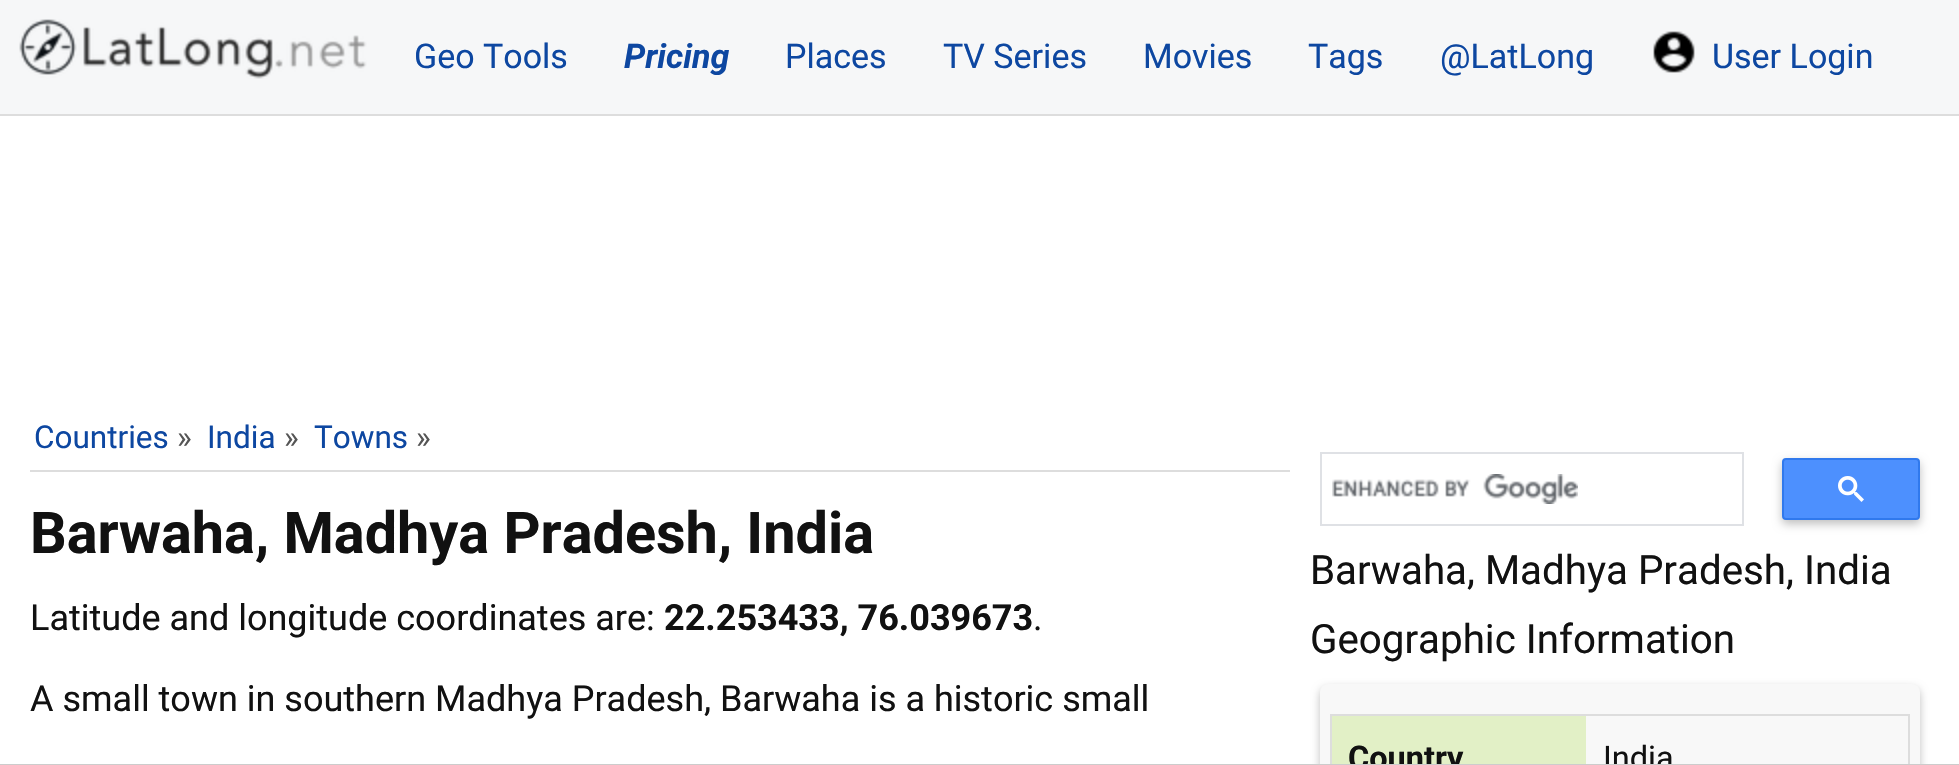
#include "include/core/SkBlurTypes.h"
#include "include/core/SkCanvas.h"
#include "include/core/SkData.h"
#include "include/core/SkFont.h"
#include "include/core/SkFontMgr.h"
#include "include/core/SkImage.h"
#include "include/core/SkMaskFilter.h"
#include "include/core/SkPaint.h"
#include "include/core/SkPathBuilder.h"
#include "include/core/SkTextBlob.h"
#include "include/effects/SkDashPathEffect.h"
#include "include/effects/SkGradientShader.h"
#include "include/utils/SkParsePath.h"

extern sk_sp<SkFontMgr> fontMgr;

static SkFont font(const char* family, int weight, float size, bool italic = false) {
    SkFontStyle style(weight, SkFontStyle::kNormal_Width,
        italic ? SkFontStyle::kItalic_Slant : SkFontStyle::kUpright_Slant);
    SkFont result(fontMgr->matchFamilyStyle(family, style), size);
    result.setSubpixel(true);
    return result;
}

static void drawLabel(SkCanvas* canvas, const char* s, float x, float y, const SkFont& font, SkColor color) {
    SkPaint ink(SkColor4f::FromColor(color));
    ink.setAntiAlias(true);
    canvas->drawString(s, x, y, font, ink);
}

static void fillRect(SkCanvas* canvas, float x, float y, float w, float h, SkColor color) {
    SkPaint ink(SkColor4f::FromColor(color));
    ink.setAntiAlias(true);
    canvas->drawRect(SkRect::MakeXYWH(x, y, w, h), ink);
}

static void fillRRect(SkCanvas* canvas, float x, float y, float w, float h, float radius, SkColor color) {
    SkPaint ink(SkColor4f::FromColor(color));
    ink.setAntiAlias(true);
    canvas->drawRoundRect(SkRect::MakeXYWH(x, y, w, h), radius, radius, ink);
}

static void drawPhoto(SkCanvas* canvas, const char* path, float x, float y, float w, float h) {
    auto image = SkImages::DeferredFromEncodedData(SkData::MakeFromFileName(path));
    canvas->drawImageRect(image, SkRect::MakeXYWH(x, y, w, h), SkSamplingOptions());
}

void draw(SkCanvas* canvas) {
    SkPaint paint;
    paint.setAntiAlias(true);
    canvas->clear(0xFFFFFFFF);
    fillRect(canvas, 0, 0, 1959, 114, 0xFFF6F7F8);
    fillRect(canvas, 0, 114, 1959, 2, 0xFFDDDDDD);
    drawPhoto(canvas, "assets/img1.png", 19, 19, 348, 60);
    SkFont font1 = font("Roboto", 400, 34);
    drawLabel(canvas, "Geo Tools", 414, 68, font1, 0xFF0D47A1);
    SkFont font2 = font("Roboto", 700, 34, true);
    drawLabel(canvas, "Pricing", 624, 68, font2, 0xFF0D47A1);
    drawLabel(canvas, "Places", 785, 68, font1, 0xFF0D47A1);
    drawLabel(canvas, "TV Series", 943, 68, font1, 0xFF0D47A1);
    drawLabel(canvas, "Movies", 1143, 68, font1, 0xFF0D47A1);
    drawLabel(canvas, "Tags", 1308, 68, font1, 0xFF0D47A1);
    drawLabel(canvas, "@LatLong", 1440, 68, font1, 0xFF0D47A1);
    drawPhoto(canvas, "assets/img2.png", 1653, 31, 42, 42);
    drawLabel(canvas, "User Login", 1712, 68, font1, 0xFF0D47A1);
    fillRect(canvas, 30, 470, 1260, 2, 0xFFDDDDDD);
    SkFont font3 = font("Roboto", 400, 31.5f);
    drawLabel(canvas, "Countries", 34, 448, font3, 0xFF0D47A1);
    drawLabel(canvas, "»", 177, 448, font3, 0xFF555555);
    drawLabel(canvas, "India", 207, 448, font3, 0xFF0D47A1);
    drawLabel(canvas, "»", 284, 448, font3, 0xFF555555);
    drawLabel(canvas, "Towns", 314, 448, font3, 0xFF0D47A1);
    drawLabel(canvas, "»", 416, 448, font3, 0xFF555555);
    SkFont font4 = font("Roboto", 700, 57.6f);
    drawLabel(canvas, "Barwaha, Madhya Pradesh, India", 30, 553, font4, 0xFF111111);
    SkFont font5 = font("Roboto", 400, 36);
    drawLabel(canvas, "Latitude and longitude coordinates are:", 30, 630, font5, 0xFF111111);
    SkFont font6 = font("Roboto", 700, 36);
    drawLabel(canvas, "22.253433, 76.039673", 664, 630, font6, 0xFF111111);
    drawLabel(canvas, ".", 1033, 630, font5, 0xFF111111);
    drawLabel(canvas, "A small town in southern Madhya Pradesh, Barwaha is a historic small", 30, 711, font5, 0xFF111111);
    paint.setStroke(true);
    paint.setStrokeWidth(2);
    paint.setColor(0xFFDFE1E5);
    canvas->drawRect(SkRect::MakeXYWH(1321, 453, 422, 72), paint);
    drawPhoto(canvas, "assets/img3.png", 1332, 474, 246, 30);
    paint.setStroke(false);
    paint.setColor(0x40000000);
    paint.setMaskFilter(SkMaskFilter::MakeBlur(kNormal_SkBlurStyle, 5));
    canvas->drawRoundRect(SkRect::MakeXYWH(1782, 462, 138, 62), 4, 4, paint);
    paint.setMaskFilter(nullptr);
    paint.setColor(0xFF4D90FE);
    canvas->drawRoundRect(SkRect::MakeXYWH(1783, 459, 136, 60), 3, 3, paint);
    paint.setStroke(true);
    paint.setColor(0xFF3079ED);
    canvas->drawRoundRect(SkRect::MakeXYWH(1783, 459, 136, 60), 3, 3, paint);
    drawPhoto(canvas, "assets/img4.png", 1838, 476, 26, 26);
    SkFont font7 = font("Roboto", 400, 40.3f);
    drawLabel(canvas, "Barwaha, Madhya Pradesh, India", 1310, 584, font7, 0xFF111111);
    drawLabel(canvas, "Geographic Information", 1310, 653, font7, 0xFF111111);
    paint.setStroke(false);
    paint.setColor(0x40000000);
    paint.setMaskFilter(SkMaskFilter::MakeBlur(kNormal_SkBlurStyle, 4));
    canvas->drawRoundRect(SkRect::MakeXYWH(1320, 688, 600, 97), 8, 8, paint);
    paint.setMaskFilter(nullptr);
    fillRRect(canvas, 1320, 684, 600, 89, 8, 0xFFF8F8F8);
    fillRect(canvas, 1330, 714, 580, 2, 0xFFDDDDDD);
    fillRect(canvas, 1908, 714, 2, 51, 0xFFDDDDDD);
    fillRect(canvas, 1330, 714, 2, 51, 0xFFDDDDDD);
    fillRect(canvas, 1332, 716, 254, 48, 0xFFE2F0C6);
    SkFont font8 = font("Roboto", 700, 32.5f);
    drawLabel(canvas, "Country", 1348, 769, font8, 0xFF111111);
    SkFont font9 = font("Roboto", 400, 32.5f);
    drawLabel(canvas, "India", 1603, 769, font9, 0xFF111111);
    fillRect(canvas, 0, 764, 1959, 1, 0xFFCCCCCC);
}
